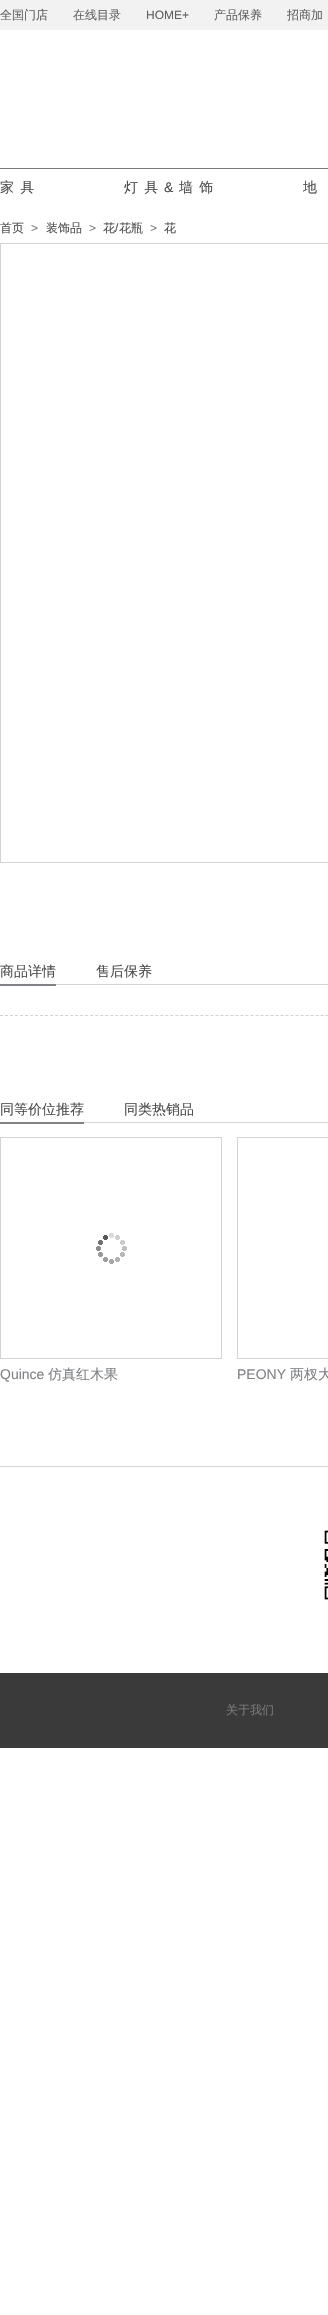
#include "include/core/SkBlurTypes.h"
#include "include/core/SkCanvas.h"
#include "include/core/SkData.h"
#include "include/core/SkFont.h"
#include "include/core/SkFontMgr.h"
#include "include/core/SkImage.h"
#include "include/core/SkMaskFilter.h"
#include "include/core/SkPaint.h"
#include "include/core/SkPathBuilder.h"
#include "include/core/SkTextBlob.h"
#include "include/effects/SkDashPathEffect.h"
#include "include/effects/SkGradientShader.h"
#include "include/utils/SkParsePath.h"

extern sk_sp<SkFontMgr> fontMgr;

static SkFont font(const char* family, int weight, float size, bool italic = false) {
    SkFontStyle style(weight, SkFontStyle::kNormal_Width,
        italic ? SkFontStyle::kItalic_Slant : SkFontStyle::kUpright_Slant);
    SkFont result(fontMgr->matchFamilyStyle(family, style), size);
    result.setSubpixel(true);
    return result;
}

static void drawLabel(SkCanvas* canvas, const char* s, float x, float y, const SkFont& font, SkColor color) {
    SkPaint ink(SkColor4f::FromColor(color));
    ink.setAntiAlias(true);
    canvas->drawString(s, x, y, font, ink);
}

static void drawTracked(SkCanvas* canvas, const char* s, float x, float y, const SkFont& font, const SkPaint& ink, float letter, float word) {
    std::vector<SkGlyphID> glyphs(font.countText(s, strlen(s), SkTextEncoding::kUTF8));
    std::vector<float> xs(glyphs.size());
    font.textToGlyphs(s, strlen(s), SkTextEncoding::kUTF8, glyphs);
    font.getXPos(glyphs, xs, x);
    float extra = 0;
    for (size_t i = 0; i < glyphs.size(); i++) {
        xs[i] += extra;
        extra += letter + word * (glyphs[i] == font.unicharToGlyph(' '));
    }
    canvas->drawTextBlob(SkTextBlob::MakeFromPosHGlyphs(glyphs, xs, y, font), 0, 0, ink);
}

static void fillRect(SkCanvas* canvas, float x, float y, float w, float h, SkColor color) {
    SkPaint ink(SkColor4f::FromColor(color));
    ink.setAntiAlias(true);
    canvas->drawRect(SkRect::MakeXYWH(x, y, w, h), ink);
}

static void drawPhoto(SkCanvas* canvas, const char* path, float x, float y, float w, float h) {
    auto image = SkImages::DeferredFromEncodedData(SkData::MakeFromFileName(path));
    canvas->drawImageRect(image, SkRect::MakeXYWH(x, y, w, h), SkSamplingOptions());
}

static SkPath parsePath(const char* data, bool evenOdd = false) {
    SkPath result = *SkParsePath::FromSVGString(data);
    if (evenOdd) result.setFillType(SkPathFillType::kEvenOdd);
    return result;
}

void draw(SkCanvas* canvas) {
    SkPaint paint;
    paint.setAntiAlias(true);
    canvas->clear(0xFFFFFFFF);
    fillRect(canvas, 0, 0, 328, 30, 0xFFF2F2F2);
    SkFont font1 = font("WenQuanYi Zen Hei", 500, 12);
    drawLabel(canvas, "全国门店", 0, 19, font1, 0xFF606060);
    drawLabel(canvas, "在线目录", 73, 19, font1, 0xFF606060);
    SkFont font2 = font("Liberation Sans", 400, 12);
    drawLabel(canvas, "HOME+", 146, 19, font2, 0xFF606060);
    drawLabel(canvas, "产品保养", 214, 19, font1, 0xFF606060);
    drawLabel(canvas, "招商加", 287, 19, font1, 0xFF606060);
    fillRect(canvas, 0, 168, 328, 1, 0xFF7A7A7A);
    SkFont font3 = font("WenQuanYi Zen Hei", 500, 14);
    paint.setColor(0xFF4C4C4C);
    drawTracked(canvas, "家 具", 0, 192, font3, paint, 0, 2);
    drawTracked(canvas, "灯 具", 124, 192, font3, paint, 0, 2);
    SkFont font4 = font("Liberation Sans", 400, 14);
    drawLabel(canvas, "&", 164, 192, font4, 0xFF4C4C4C);
    drawTracked(canvas, "墙 饰", 179, 192, font3, paint, 0, 2);
    drawTracked(canvas, "地", 303, 192, font3, paint, 0, 2);
    drawLabel(canvas, "首页", 0, 232, font1, 0xFF4C4C4C);
    drawLabel(canvas, ">", 31, 232, font2, 0xFF7A7A7A);
    drawLabel(canvas, "装饰品", 46, 232, font1, 0xFF4C4C4C);
    drawLabel(canvas, ">", 89, 232, font2, 0xFF7A7A7A);
    drawLabel(canvas, "花", 103, 232, font1, 0xFF4C4C4C);
    drawLabel(canvas, "/", 115, 232, font2, 0xFF4C4C4C);
    drawLabel(canvas, "花瓶", 119, 232, font1, 0xFF4C4C4C);
    drawLabel(canvas, ">", 150, 232, font2, 0xFF7A7A7A);
    drawLabel(canvas, "花", 164, 232, font1, 0xFF4C4C4C);
    paint.setStroke(true);
    paint.setStrokeWidth(1);
    paint.setColor(0xFFD1D3D4);
    canvas->drawRect(SkRect::MakeXYWH(0.5f, 243.5f, 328, 619), paint);
    fillRect(canvas, 56, 984, 272, 1, 0xFFD1D3D4);
    fillRect(canvas, 0, 984, 56, 2, 0xFF808285);
    drawLabel(canvas, "商品详情", 0, 976, font3, 0xFF4C4C4C);
    drawLabel(canvas, "售后保养", 96, 976, font3, 0xFF4C4C4C);
    paint.setPathEffect(SkDashPathEffect::Make({{3, 2.01f}}, 0));
    canvas->drawPath(parsePath("M0 1015.5H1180"), paint);
    paint.setPathEffect(nullptr);
    fillRect(canvas, 84, 1122, 244, 1, 0xFFD1D3D4);
    fillRect(canvas, 0, 1122, 84, 2, 0xFF808285);
    drawLabel(canvas, "同等价位推荐", 0, 1114, font3, 0xFF4C4C4C);
    drawLabel(canvas, "同类热销品", 124, 1114, font3, 0xFF4C4C4C);
    drawPhoto(canvas, "assets/img1.png", 96, 1233, 31, 31);
    canvas->drawRect(SkRect::MakeXYWH(0.5f, 1137.5f, 221, 221), paint);
    drawLabel(canvas, "Quince", 0, 1379, font4, 0xFF808285);
    drawLabel(canvas, "仿真红木果", 48, 1379, font3, 0xFF808285);
    canvas->drawRect(SkRect::MakeXYWH(237.5f, 1137.5f, 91, 221), paint);
    drawLabel(canvas, "PEONY", 237, 1379, font4, 0xFF808285);
    drawLabel(canvas, "两杈大", 290, 1379, font3, 0xFF808285);
    fillRect(canvas, 0, 1466, 328, 1, 0xFFD1D3D4);
    drawPhoto(canvas, "assets/img2.png", 324, 1530, 4, 70);
    fillRect(canvas, 0, 1673, 328, 75, 0xFF3A3A3A);
    drawLabel(canvas, "关于我们", 226, 1714, font1, 0xFF7A7A7A);
}
